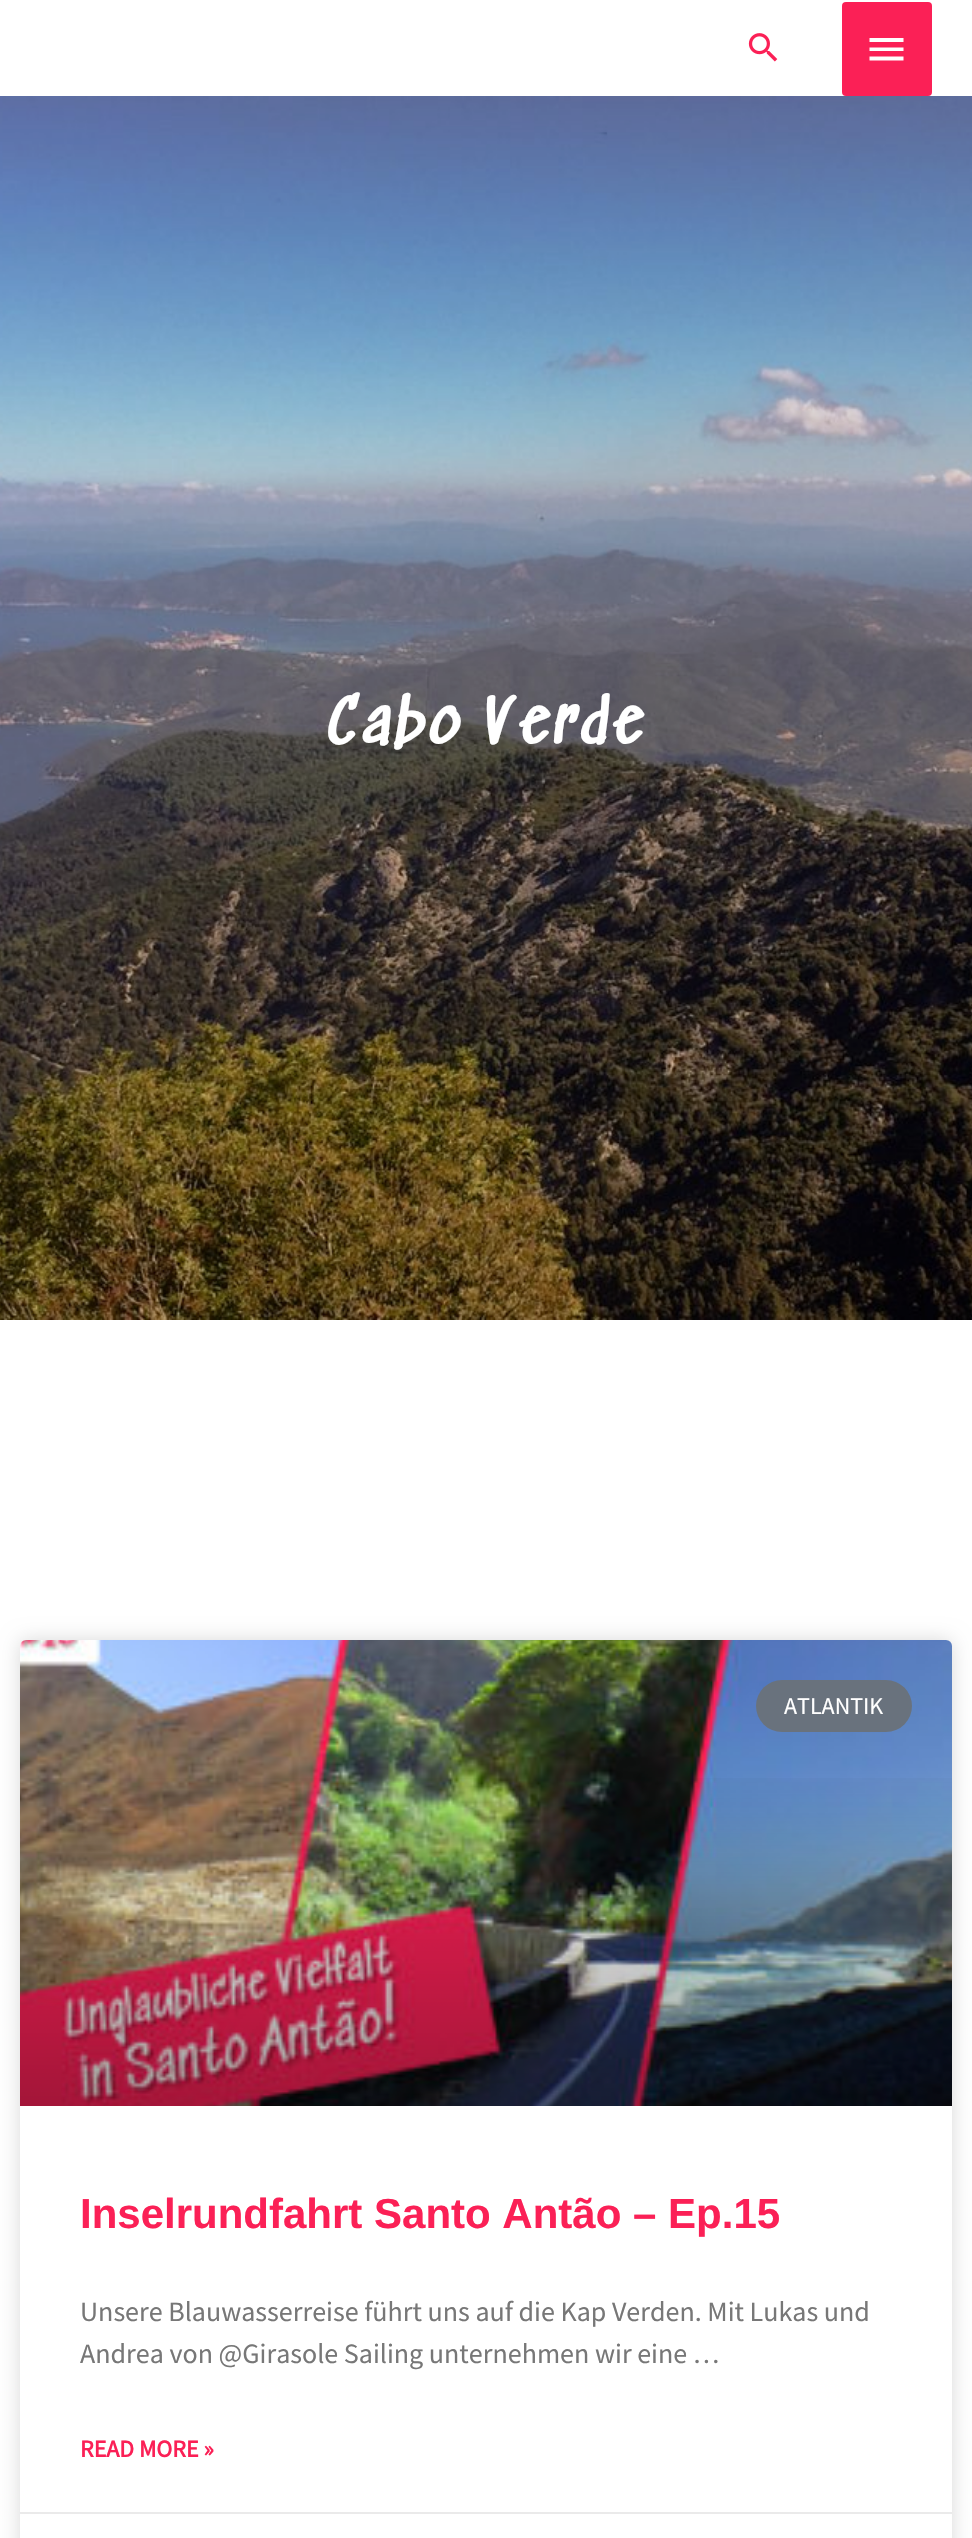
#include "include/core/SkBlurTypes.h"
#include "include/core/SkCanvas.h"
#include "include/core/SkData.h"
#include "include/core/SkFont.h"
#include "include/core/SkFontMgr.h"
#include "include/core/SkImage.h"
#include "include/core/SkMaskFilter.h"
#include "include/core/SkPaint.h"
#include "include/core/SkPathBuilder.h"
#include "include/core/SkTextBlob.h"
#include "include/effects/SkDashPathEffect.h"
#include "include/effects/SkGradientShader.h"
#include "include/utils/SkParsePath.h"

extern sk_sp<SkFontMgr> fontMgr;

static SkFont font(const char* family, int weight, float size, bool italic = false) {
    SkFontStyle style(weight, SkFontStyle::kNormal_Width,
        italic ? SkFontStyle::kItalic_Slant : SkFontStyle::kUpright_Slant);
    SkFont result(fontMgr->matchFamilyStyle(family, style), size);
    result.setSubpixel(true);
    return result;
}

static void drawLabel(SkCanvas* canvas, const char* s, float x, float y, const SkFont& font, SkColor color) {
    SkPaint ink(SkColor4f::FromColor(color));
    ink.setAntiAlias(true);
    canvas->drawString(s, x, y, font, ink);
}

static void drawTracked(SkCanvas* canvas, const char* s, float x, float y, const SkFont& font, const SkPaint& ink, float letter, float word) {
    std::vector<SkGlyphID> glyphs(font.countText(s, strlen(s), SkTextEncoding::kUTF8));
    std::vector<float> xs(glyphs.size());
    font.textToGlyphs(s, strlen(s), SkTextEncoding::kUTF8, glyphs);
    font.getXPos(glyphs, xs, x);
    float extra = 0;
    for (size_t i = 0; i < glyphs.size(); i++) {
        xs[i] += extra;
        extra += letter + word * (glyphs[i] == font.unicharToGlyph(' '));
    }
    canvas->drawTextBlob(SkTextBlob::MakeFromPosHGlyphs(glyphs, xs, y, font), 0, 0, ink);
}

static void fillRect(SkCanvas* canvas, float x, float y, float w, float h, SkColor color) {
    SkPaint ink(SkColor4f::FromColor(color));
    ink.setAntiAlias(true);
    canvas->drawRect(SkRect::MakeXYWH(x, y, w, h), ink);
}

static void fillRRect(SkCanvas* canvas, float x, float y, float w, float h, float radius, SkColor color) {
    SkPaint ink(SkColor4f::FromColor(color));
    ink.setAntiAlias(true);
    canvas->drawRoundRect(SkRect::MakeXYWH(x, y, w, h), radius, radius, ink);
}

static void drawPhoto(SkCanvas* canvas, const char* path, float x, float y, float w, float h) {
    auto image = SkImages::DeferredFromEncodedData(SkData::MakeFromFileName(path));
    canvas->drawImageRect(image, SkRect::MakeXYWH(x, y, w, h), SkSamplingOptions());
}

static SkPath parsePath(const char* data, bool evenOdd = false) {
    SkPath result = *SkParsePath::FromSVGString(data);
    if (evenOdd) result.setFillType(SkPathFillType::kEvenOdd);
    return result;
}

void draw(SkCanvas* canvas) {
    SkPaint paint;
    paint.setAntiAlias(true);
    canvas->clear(0xFFFFFFFF);
    drawPhoto(canvas, "assets/img1.png", 748, 33, 30, 29);
    fillRRect(canvas, 842, 2, 90, 94, 4, 0xFFFB2056);
    paint.setColor(0xFFFFFFFF);
    canvas->drawPath(parsePath("M869.5 38H903.5V42H869.5ZM869.5 51V47.5H903.5V51ZM869.5 60.5V56.5H903.5V60.5Z"), paint);
    drawPhoto(canvas, "assets/img2.png", 0, 96, 972, 1224);
    SkFont font1 = font("Sedgwick Ave", 700, 60);
    drawTracked(canvas, "Cabo Verde", 326, 746, font1, paint, 5, 0);
    paint.setColor(0x26000000);
    paint.setMaskFilter(SkMaskFilter::MakeBlur(kNormal_SkBlurStyle, 10));
    canvas->drawRoundRect(SkRect::MakeXYWH(20, 1640, 932, 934), 6, 6, paint);
    paint.setMaskFilter(nullptr);
    fillRRect(canvas, 20, 1640, 932, 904, 6, 0xFFFFFFFF);
    drawPhoto(canvas, "assets/img3.png", 20, 1640, 932, 466);
    {
        const SkColor colors[] = {0x59000000, 0x00000000};
        const float stops[] = {0, 0.75f};
        const SkPoint ends[] = {{486, 2106}, {486, 1640}};
        paint.setShader(SkGradientShader::MakeLinear(ends, colors, stops, 2, SkTileMode::kClamp));
        paint.setAlpha(255);
    }
    canvas->drawRect(SkRect::MakeXYWH(20, 1778, 932, 328), paint);
    fillRRect(canvas, 756, 1680, 156, 52, 26, 0xFF69727D);
    SkFont font2 = font("Source Sans Pro", 400, 24);
    drawLabel(canvas, "ATLANTIK", 784, 1714, font2, 0xFFFFFFFF);
    SkFont font3 = font("Liberation Sans", 700, 42);
    drawLabel(canvas, "Inselrundfahrt Santo Antão – Ep.15", 80, 2228, font3, 0xFFFB2056);
    SkFont font4 = font("Source Sans Pro", 400, 28);
    drawLabel(canvas, "Unsere Blauwasserreise führt uns auf die Kap Verden. Mit Lukas und", 80, 2321, font4, 0xFF777777);
    drawLabel(canvas, "Andrea von @Girasole Sailing unternehmen wir eine …", 80, 2363, font4, 0xFF777777);
    SkFont font5 = font("Source Sans Pro", 700, 24);
    drawLabel(canvas, "READ MORE »", 80, 2457, font5, 0xFFFB2056);
    fillRect(canvas, 20, 2512, 932, 2, 0xFFEAEAEA);
}
